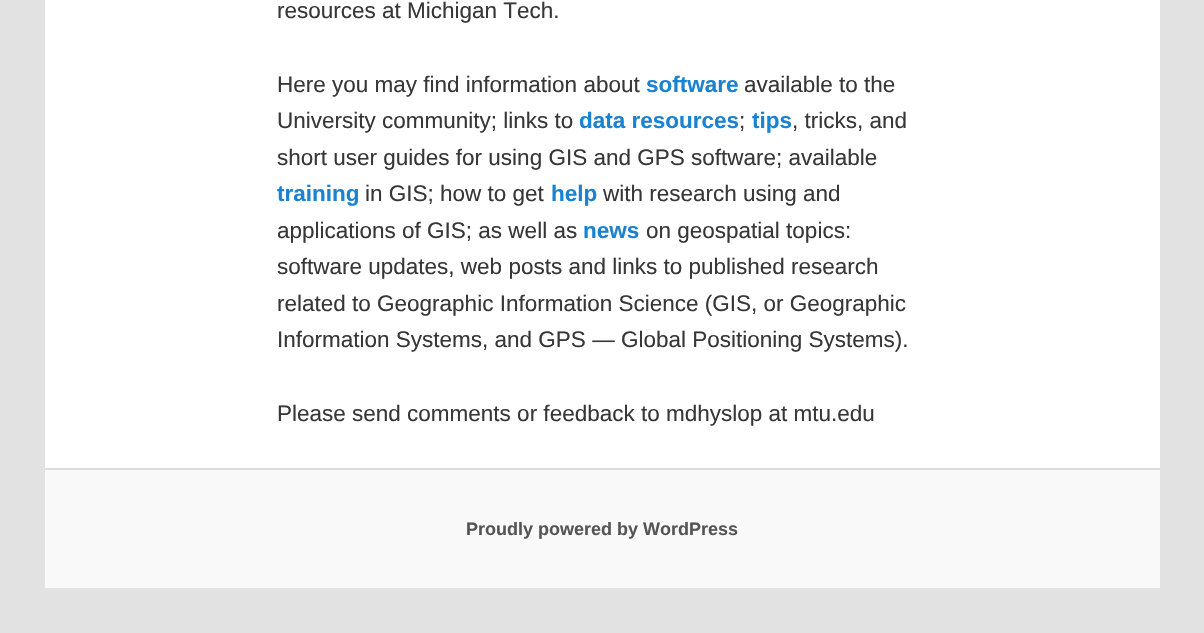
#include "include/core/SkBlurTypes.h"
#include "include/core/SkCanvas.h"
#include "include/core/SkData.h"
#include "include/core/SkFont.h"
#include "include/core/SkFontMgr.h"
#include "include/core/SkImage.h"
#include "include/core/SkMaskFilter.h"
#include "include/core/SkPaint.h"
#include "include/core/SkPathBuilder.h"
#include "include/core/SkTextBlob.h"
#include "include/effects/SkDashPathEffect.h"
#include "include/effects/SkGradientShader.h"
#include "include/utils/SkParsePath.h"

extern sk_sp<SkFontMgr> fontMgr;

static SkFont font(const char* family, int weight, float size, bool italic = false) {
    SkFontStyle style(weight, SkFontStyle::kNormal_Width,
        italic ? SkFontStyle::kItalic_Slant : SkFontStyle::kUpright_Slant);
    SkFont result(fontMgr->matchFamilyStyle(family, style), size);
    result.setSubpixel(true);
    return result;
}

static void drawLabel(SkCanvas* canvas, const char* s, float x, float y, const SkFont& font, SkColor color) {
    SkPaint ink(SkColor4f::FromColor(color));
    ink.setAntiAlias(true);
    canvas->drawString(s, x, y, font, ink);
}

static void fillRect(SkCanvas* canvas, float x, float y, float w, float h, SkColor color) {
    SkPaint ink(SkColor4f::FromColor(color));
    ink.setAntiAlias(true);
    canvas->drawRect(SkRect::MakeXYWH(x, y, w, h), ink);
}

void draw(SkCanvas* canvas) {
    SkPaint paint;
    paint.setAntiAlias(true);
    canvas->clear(0xFFE2E2E2);
    fillRect(canvas, 45, 0, 1115, 468, 0xFFFFFFFF);
    SkFont font1 = font("Liberation Sans", 400, 22.5f);
    drawLabel(canvas, "resources at Michigan Tech.", 277, 18, font1, 0xFF373737);
    drawLabel(canvas, "Here you may find information about", 277, 92, font1, 0xFF373737);
    SkFont font2 = font("Liberation Sans", 700, 22.5f);
    drawLabel(canvas, "software", 646, 92, font2, 0xFF1982D1);
    drawLabel(canvas, "available to the", 744, 92, font1, 0xFF373737);
    drawLabel(canvas, "University community; links to", 277, 128, font1, 0xFF373737);
    drawLabel(canvas, "data resources", 579, 128, font2, 0xFF1982D1);
    drawLabel(canvas, ";", 739, 128, font1, 0xFF373737);
    drawLabel(canvas, "tips", 752, 128, font2, 0xFF1982D1);
    drawLabel(canvas, ", tricks, and", 792, 128, font1, 0xFF373737);
    drawLabel(canvas, "short user guides for using GIS and GPS software; available", 277, 165, font1, 0xFF373737);
    drawLabel(canvas, "training", 277, 201, font2, 0xFF1982D1);
    drawLabel(canvas, "in GIS; how to get", 365, 201, font1, 0xFF373737);
    drawLabel(canvas, "help", 551, 201, font2, 0xFF1982D1);
    drawLabel(canvas, "with research using and", 603, 201, font1, 0xFF373737);
    drawLabel(canvas, "applications of GIS; as well as", 277, 238, font1, 0xFF373737);
    drawLabel(canvas, "news", 583, 238, font2, 0xFF1982D1);
    drawLabel(canvas, "on geospatial topics:", 646, 238, font1, 0xFF373737);
    drawLabel(canvas, "software updates, web posts and links to published research", 277, 274, font1, 0xFF373737);
    drawLabel(canvas, "related to Geographic Information Science (GIS, or Geographic", 277, 311, font1, 0xFF373737);
    drawLabel(canvas, "Information Systems, and GPS — Global Positioning Systems).", 277, 347, font1, 0xFF373737);
    drawLabel(canvas, "Please send comments or feedback to mdhyslop at mtu.edu", 277, 421, font1, 0xFF373737);
    fillRect(canvas, 45, 470, 1115, 118, 0xFFF9F9F9);
    fillRect(canvas, 45, 468, 1115, 2, 0xFFDDDDDD);
    SkFont font3 = font("Liberation Sans", 700, 18);
    drawLabel(canvas, "Proudly powered by WordPress", 466, 535, font3, 0xFF555555);
}
